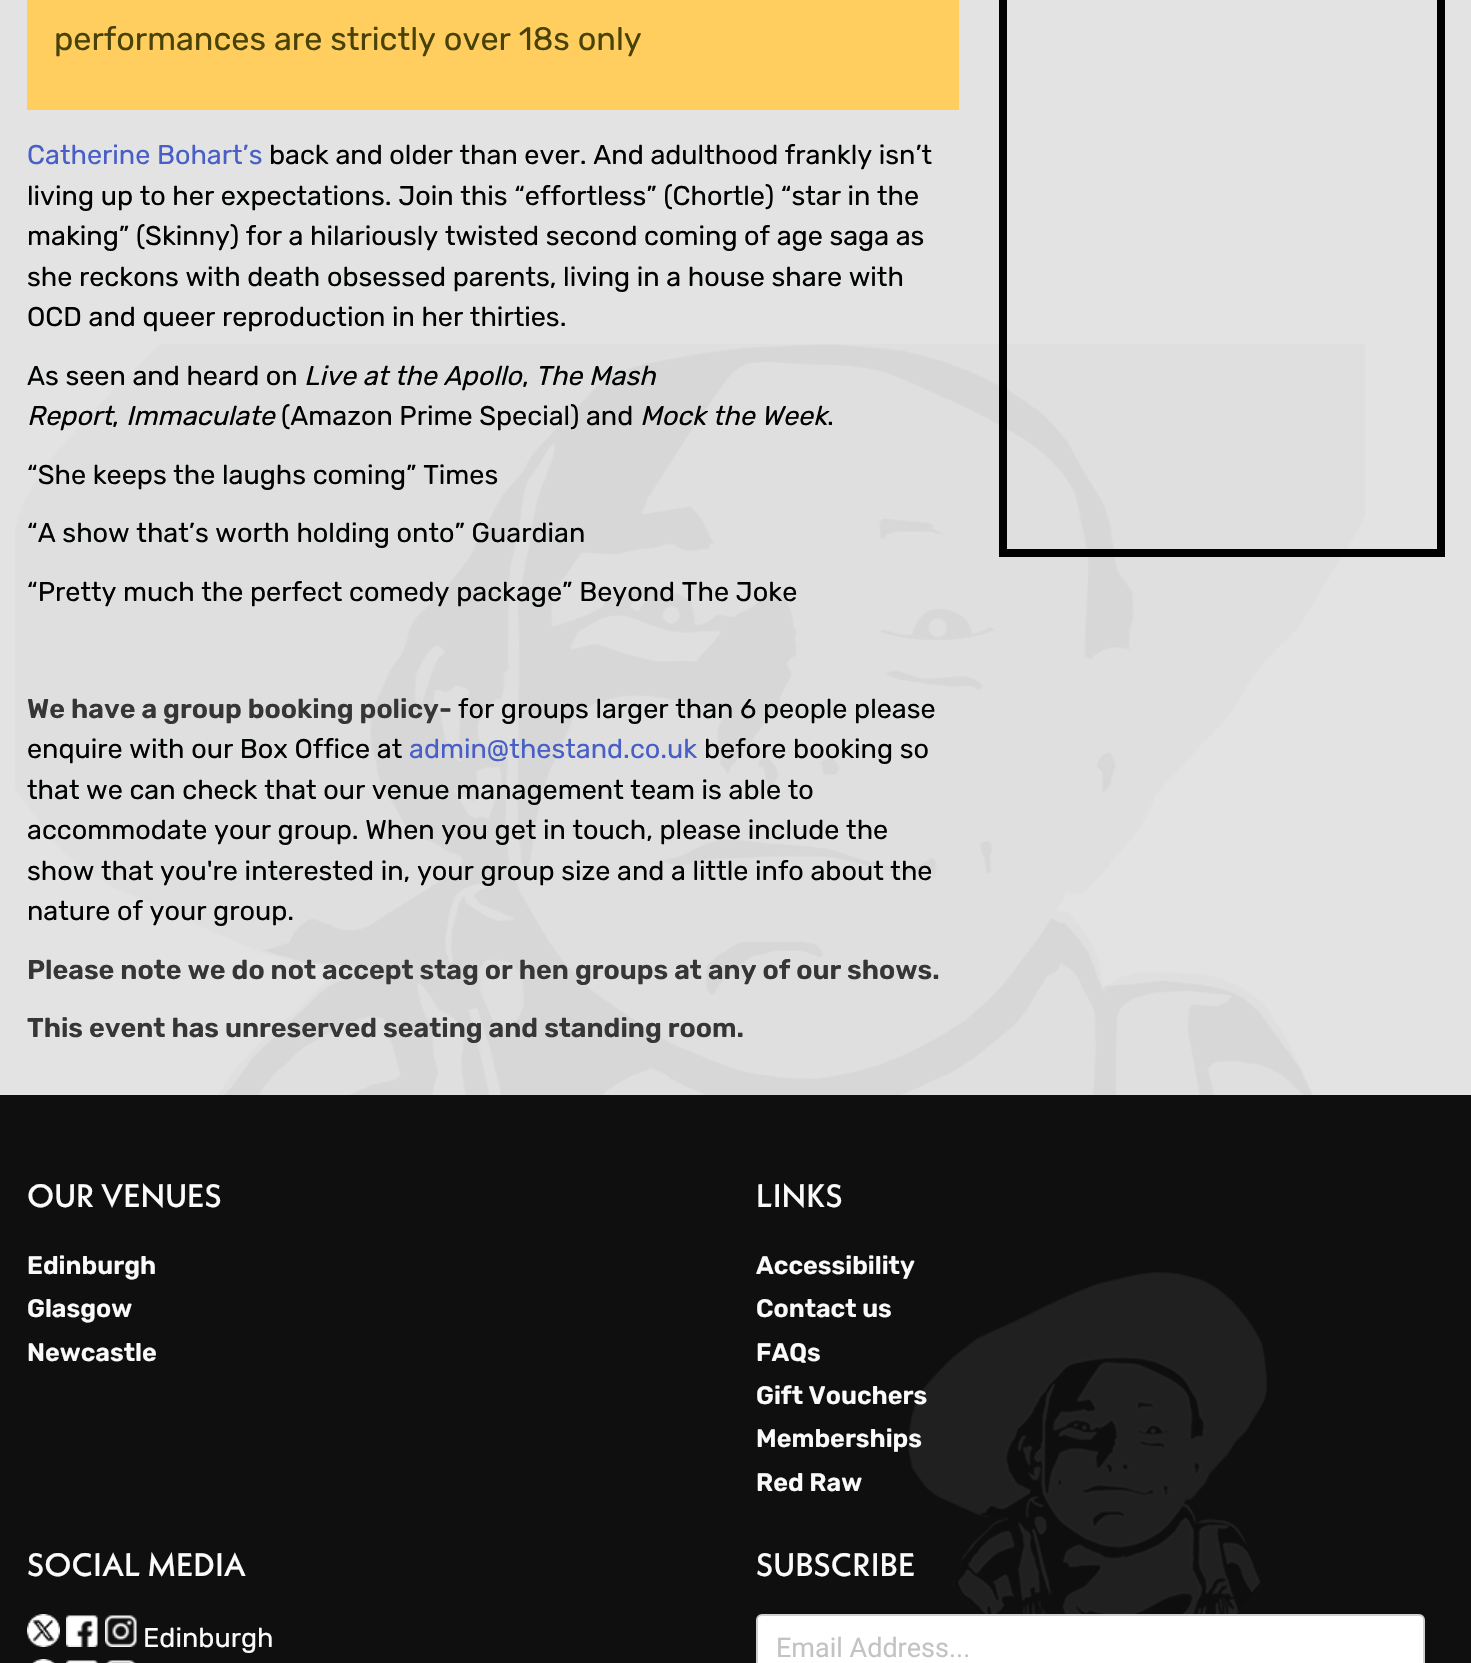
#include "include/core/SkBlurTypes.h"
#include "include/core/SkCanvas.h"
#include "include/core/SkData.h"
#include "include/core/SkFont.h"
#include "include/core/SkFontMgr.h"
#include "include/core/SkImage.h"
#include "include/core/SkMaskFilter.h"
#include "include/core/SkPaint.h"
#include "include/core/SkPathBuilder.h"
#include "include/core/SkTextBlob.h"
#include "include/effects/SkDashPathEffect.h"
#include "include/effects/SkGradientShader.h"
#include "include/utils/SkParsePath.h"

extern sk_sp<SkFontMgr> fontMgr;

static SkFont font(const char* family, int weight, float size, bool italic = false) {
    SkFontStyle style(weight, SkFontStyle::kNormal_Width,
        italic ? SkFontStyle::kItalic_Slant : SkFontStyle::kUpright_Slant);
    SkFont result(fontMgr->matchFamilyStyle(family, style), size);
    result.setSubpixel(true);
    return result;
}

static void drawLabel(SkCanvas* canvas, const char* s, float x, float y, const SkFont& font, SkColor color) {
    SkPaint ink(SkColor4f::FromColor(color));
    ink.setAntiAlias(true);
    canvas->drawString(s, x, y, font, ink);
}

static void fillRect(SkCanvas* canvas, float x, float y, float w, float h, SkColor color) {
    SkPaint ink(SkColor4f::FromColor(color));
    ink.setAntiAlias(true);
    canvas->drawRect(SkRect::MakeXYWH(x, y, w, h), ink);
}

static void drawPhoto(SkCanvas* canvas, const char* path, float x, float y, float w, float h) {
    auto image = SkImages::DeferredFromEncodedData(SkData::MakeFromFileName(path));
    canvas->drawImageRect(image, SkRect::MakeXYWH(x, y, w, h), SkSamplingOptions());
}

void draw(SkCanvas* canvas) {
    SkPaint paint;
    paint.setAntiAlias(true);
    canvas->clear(0xFFE3E3E3);
    drawPhoto(canvas, "assets/img1.png", 15, 344, 1350, 751);
    fillRect(canvas, 27, 0, 932, 110, 0xFFFFCE5F);
    SkFont font1 = font("Rubik", 400, 32.4f);
    drawLabel(canvas, "performances are strictly over 18s only", 54, 50, font1, 0xFF484208);
    SkFont font2 = font("Rubik", 400, 27);
    drawLabel(canvas, "Catherine Bohart’s", 27, 164, font2, 0xFF485FC7);
    drawLabel(canvas, "back and older than ever. And adulthood frankly isn’t", 269, 164, font2, 0xFF000302);
    drawLabel(canvas, "living up to her expectations. Join this “effortless” (Chortle) “star in the", 27, 205, font2, 0xFF000302);
    drawLabel(canvas, "making” (Skinny) for a hilariously twisted second coming of age saga as", 27, 245, font2, 0xFF000302);
    drawLabel(canvas, "she reckons with death obsessed parents, living in a house share with", 27, 286, font2, 0xFF000302);
    drawLabel(canvas, "OCD and queer reproduction in her thirties.", 27, 326, font2, 0xFF000302);
    drawLabel(canvas, "As seen and heard on", 27, 385, font2, 0xFF000302);
    SkFont font3 = font("Rubik", 400, 27, true);
    drawLabel(canvas, "Live at the Apollo", 304, 385, font3, 0xFF000302);
    drawLabel(canvas, ",", 522, 385, font2, 0xFF000302);
    drawLabel(canvas, "The Mash", 535, 385, font3, 0xFF000302);
    drawLabel(canvas, "Report", 27, 425, font3, 0xFF000302);
    drawLabel(canvas, ",", 112, 425, font2, 0xFF000302);
    drawLabel(canvas, "Immaculate", 126, 425, font3, 0xFF000302);
    drawLabel(canvas, "(Amazon Prime Special) and", 281, 425, font2, 0xFF000302);
    drawLabel(canvas, "Mock the Week", 640, 425, font3, 0xFF000302);
    drawLabel(canvas, ".", 827, 425, font2, 0xFF000302);
    drawLabel(canvas, "“She keeps the laughs coming” Times", 27, 484, font2, 0xFF000302);
    drawLabel(canvas, "“A show that’s worth holding onto” Guardian", 27, 542, font2, 0xFF000302);
    drawLabel(canvas, "“Pretty much the perfect comedy package” Beyond The Joke", 27, 601, font2, 0xFF000302);
    SkFont font4 = font("Rubik", 600, 27);
    drawLabel(canvas, "We have a group booking policy-", 27, 718, font4, 0xFF363636);
    drawLabel(canvas, "for groups larger than 6 people please", 458, 718, font2, 0xFF000302);
    drawLabel(canvas, "enquire with our Box Office at", 27, 758, font2, 0xFF000302);
    drawLabel(canvas, "admin@thestand.co.uk", 409, 758, font2, 0xFF485FC7);
    drawLabel(canvas, "before booking so", 704, 758, font2, 0xFF000302);
    drawLabel(canvas, "that we can check that our venue management team is able to", 27, 799, font2, 0xFF000302);
    drawLabel(canvas, "accommodate your group. When you get in touch, please include the", 27, 839, font2, 0xFF000302);
    drawLabel(canvas, "show that you're interested in, your group size and a little info about the", 27, 880, font2, 0xFF000302);
    drawLabel(canvas, "nature of your group.", 27, 920, font2, 0xFF000302);
    drawLabel(canvas, "Please note we do not accept stag or hen groups at any of our shows.", 27, 979, font4, 0xFF363636);
    drawLabel(canvas, "This event has unreserved seating and standing room.", 27, 1037, font4, 0xFF363636);
    paint.setStroke(true);
    paint.setStrokeWidth(8);
    paint.setColor(0xFF000000);
    canvas->drawRect(SkRect::MakeXYWH(1003, -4, 438, 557), paint);
    fillRect(canvas, 0, 1095, 1471, 568, 0xFF0F0F0F);
    SkFont font5 = font("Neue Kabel", 500, 32.4f);
    drawLabel(canvas, "OUR VENUES", 27, 1207, font5, 0xFFFAFAFA);
    SkFont font6 = font("Rubik", 600, 25.25f);
    drawLabel(canvas, "Edinburgh", 27, 1274, font6, 0xFFFAFAFA);
    drawLabel(canvas, "Glasgow", 27, 1317, font6, 0xFFFAFAFA);
    drawLabel(canvas, "Newcastle", 27, 1361, font6, 0xFFFAFAFA);
    drawLabel(canvas, "LINKS", 756, 1207, font5, 0xFFFAFAFA);
    drawPhoto(canvas, "assets/img8.png", 908, 1272, 359, 342);
    drawLabel(canvas, "Accessibility", 756, 1274, font6, 0xFFFAFAFA);
    drawLabel(canvas, "Contact us", 756, 1317, font6, 0xFFFAFAFA);
    drawLabel(canvas, "FAQs", 756, 1361, font6, 0xFFFAFAFA);
    drawLabel(canvas, "Gift Vouchers", 756, 1404, font6, 0xFFFAFAFA);
    drawLabel(canvas, "Memberships", 756, 1447, font6, 0xFFFAFAFA);
    drawLabel(canvas, "Red Raw", 756, 1491, font6, 0xFFFAFAFA);
    drawLabel(canvas, "SOCIAL MEDIA", 27, 1576, font5, 0xFFFAFAFA);
    drawPhoto(canvas, "assets/img2.png", 27, 1614, 33, 33);
    drawPhoto(canvas, "assets/img3.png", 66, 1615, 32, 32);
    drawPhoto(canvas, "assets/img4.png", 105, 1615, 32, 32);
    drawLabel(canvas, "Edinburgh", 143, 1647, font2, 0xFFFAFAFA);
    drawPhoto(canvas, "assets/img5.png", 32, 1659, 23, 4);
    drawPhoto(canvas, "assets/img6.png", 66, 1660, 32, 3);
    drawPhoto(canvas, "assets/img7.png", 106, 1660, 30, 3);
    drawLabel(canvas, "SUBSCRIBE", 756, 1576, font5, 0xFFFAFAFA);
    paint.setStroke(false);
    paint.setColor(0xFFFFFFFF);
    canvas->drawRoundRect(SkRect::MakeXYWH(757, 1615, 667, 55), 5, 5, paint);
    paint.setStroke(true);
    paint.setStrokeWidth(2);
    paint.setColor(0xFFD0D1CD);
    canvas->drawRoundRect(SkRect::MakeXYWH(757, 1615, 667, 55), 5, 5, paint);
    SkFont font7 = font("Roboto", 400, 27);
    drawLabel(canvas, "Email Address...", 776, 1657, font7, 0xFFC3C3C3);
}
